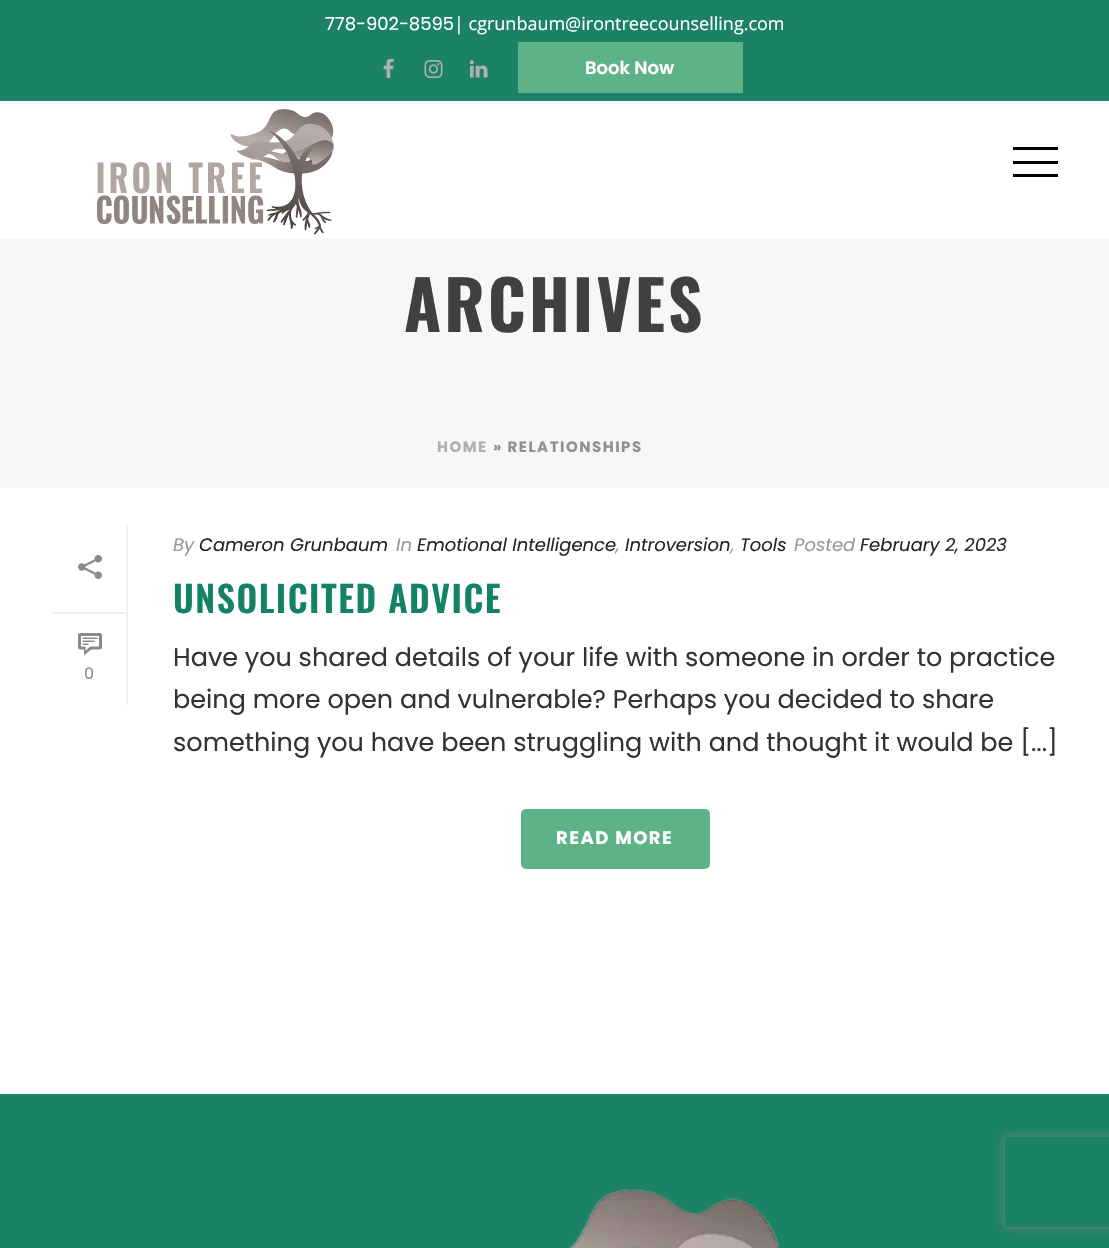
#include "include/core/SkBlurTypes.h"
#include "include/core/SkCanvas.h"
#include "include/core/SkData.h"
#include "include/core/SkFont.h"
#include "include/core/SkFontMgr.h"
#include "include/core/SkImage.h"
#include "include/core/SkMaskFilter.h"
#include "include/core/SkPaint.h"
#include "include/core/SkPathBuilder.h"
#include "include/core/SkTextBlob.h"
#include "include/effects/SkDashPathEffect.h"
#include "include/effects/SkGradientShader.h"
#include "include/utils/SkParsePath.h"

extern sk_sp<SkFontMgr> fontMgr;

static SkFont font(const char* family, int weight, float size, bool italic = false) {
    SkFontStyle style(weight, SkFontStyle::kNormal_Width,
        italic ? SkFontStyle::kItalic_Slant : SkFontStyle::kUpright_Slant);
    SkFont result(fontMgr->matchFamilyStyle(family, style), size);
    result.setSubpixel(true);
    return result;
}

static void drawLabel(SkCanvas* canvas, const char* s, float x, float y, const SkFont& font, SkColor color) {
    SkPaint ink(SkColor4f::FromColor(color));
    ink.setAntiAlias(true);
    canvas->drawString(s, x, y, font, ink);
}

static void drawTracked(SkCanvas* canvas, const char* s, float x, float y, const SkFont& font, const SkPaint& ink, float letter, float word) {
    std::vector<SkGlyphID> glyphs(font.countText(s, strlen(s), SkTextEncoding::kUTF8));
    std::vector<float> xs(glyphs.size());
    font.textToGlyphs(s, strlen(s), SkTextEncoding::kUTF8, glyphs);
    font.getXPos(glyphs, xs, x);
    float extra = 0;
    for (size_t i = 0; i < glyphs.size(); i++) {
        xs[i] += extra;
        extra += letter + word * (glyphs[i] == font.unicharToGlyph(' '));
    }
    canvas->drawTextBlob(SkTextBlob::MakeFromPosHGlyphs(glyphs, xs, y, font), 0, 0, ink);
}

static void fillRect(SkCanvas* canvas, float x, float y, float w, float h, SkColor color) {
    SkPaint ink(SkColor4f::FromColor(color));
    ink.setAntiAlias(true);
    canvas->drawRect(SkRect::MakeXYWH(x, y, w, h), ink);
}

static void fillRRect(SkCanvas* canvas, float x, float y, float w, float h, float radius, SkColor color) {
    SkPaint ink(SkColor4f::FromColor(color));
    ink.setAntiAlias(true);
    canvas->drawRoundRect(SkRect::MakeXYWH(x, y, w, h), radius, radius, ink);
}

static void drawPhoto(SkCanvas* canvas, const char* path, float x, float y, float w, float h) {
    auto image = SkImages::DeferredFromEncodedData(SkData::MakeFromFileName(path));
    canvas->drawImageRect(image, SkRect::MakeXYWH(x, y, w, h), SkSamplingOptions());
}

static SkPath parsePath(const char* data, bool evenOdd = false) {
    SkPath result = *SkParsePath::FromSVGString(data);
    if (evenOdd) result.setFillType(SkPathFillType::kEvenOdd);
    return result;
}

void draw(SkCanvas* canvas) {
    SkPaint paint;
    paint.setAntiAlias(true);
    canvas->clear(0xFFFFFFFF);
    fillRect(canvas, 0, 0, 1109, 101, 0xFF1B8265);
    SkFont font1 = font("Poppins", 400, 18);
    drawLabel(canvas, "778-902-8595", 325, 30, font1, 0xFFFFFFFF);
    SkFont font2 = font("Open Sans", 400, 18);
    drawLabel(canvas, "| cgrunbaum@irontreecounselling.com", 454, 30, font2, 0xFFFFFFFF);
    drawPhoto(canvas, "assets/img1.png", 383, 59, 11, 19);
    drawPhoto(canvas, "assets/img2.png", 424, 60, 19, 18);
    drawPhoto(canvas, "assets/img3.png", 470, 60, 18, 18);
    fillRect(canvas, 518, 42, 225, 51, 0xFF5DB387);
    SkFont font3 = font("Poppins", 600, 18);
    drawLabel(canvas, "Book Now", 585, 74, font3, 0xFFFFFFFF);
    drawPhoto(canvas, "assets/img4.png", 97, 109, 237, 126);
    fillRect(canvas, 1013, 161, 45, 3, 0xFF000000);
    fillRect(canvas, 1013, 147, 45, 3, 0xFF000000);
    fillRect(canvas, 1013, 174, 45, 3, 0xFF000000);
    fillRect(canvas, 0, 239, 1109, 249, 0xFFF7F7F7);
    SkFont font4 = font("Oswald", 700, 67.5f);
    paint.setColor(0xFF404040);
    drawTracked(canvas, "ARCHIVES", 404, 332, font4, paint, 3, 0);
    SkFont font5 = font("Poppins", 700, 15);
    paint.setColor(0xFFAFAFAF);
    drawTracked(canvas, "HOME", 437, 452, font5, paint, 1.5f, 0);
    paint.setColor(0xFF919191);
    drawTracked(canvas, "» RELATIONSHIPS", 493, 452, font5, paint, 1.5f, 0);
    fillRect(canvas, 126, 525, 2, 180, 0xFFEFEFEF);
    fillRect(canvas, 53, 612, 73, 2, 0xFFEFEFEF);
    drawPhoto(canvas, "assets/img5.png", 78, 555, 24, 24);
    drawPhoto(canvas, "assets/img6.png", 78, 633, 24, 23);
    SkFont font6 = font("Poppins", 400, 16);
    drawLabel(canvas, "0", 84, 679, font6, 0xFF898989);
    SkFont font7 = font("Poppins", 400, 18, true);
    drawLabel(canvas, "By", 173, 551, font7, 0xFF999999);
    drawLabel(canvas, "Cameron Grunbaum", 199, 551, font7, 0xFF252525);
    drawLabel(canvas, "In", 396, 551, font7, 0xFF999999);
    drawLabel(canvas, "Emotional Intelligence", 417, 551, font7, 0xFF252525);
    drawLabel(canvas, ",", 616, 551, font7, 0xFF999999);
    drawLabel(canvas, "Introversion", 625, 551, font7, 0xFF252525);
    drawLabel(canvas, ",", 731, 551, font7, 0xFF999999);
    drawLabel(canvas, "Tools", 740, 551, font7, 0xFF252525);
    drawLabel(canvas, "Posted", 794, 551, font7, 0xFF999999);
    drawLabel(canvas, "February 2, 2023", 860, 551, font7, 0xFF252525);
    SkFont font8 = font("Oswald", 600, 36);
    paint.setColor(0xFF138265);
    drawTracked(canvas, "UNSOLICITED ADVICE", 173, 613, font8, paint, 1.5f, 0);
    SkFont font9 = font("Poppins", 400, 25.5f);
    drawLabel(canvas, "Have you shared details of your life with someone in order to practice", 173, 666, font9, 0xFF333333);
    drawLabel(canvas, "being more open and vulnerable? Perhaps you decided to share", 173, 708, font9, 0xFF333333);
    drawLabel(canvas, "something you have been struggling with and thought it would be [...]", 173, 751, font9, 0xFF333333);
    fillRRect(canvas, 521, 809, 189, 60, 5, 0xFF5DB387);
    SkFont font10 = font("Poppins", 700, 18);
    paint.setColor(0xFFFFFFFF);
    drawTracked(canvas, "READ MORE", 556, 844, font10, paint, 1.5f, 0);
    fillRect(canvas, 0, 1094, 1109, 154, 0xFF1B8265);
    drawPhoto(canvas, "assets/img7.png", 569, 1189, 211, 59);
    canvas->save();
    canvas->clipPath(parsePath("M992 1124H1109V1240H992ZM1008 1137H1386C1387.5 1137 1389 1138.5 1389 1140V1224C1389 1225.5 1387.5 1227 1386 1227H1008C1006.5 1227 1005 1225.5 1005 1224V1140C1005 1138.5 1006.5 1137 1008 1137Z", true), true);
    paint.setColor(0xFF808080);
    paint.setMaskFilter(SkMaskFilter::MakeBlur(kNormal_SkBlurStyle, 4));
    canvas->drawRoundRect(SkRect::MakeXYWH(1005, 1137, 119, 90), 3, 3, paint);
    paint.setMaskFilter(nullptr);
    canvas->restore();
}
